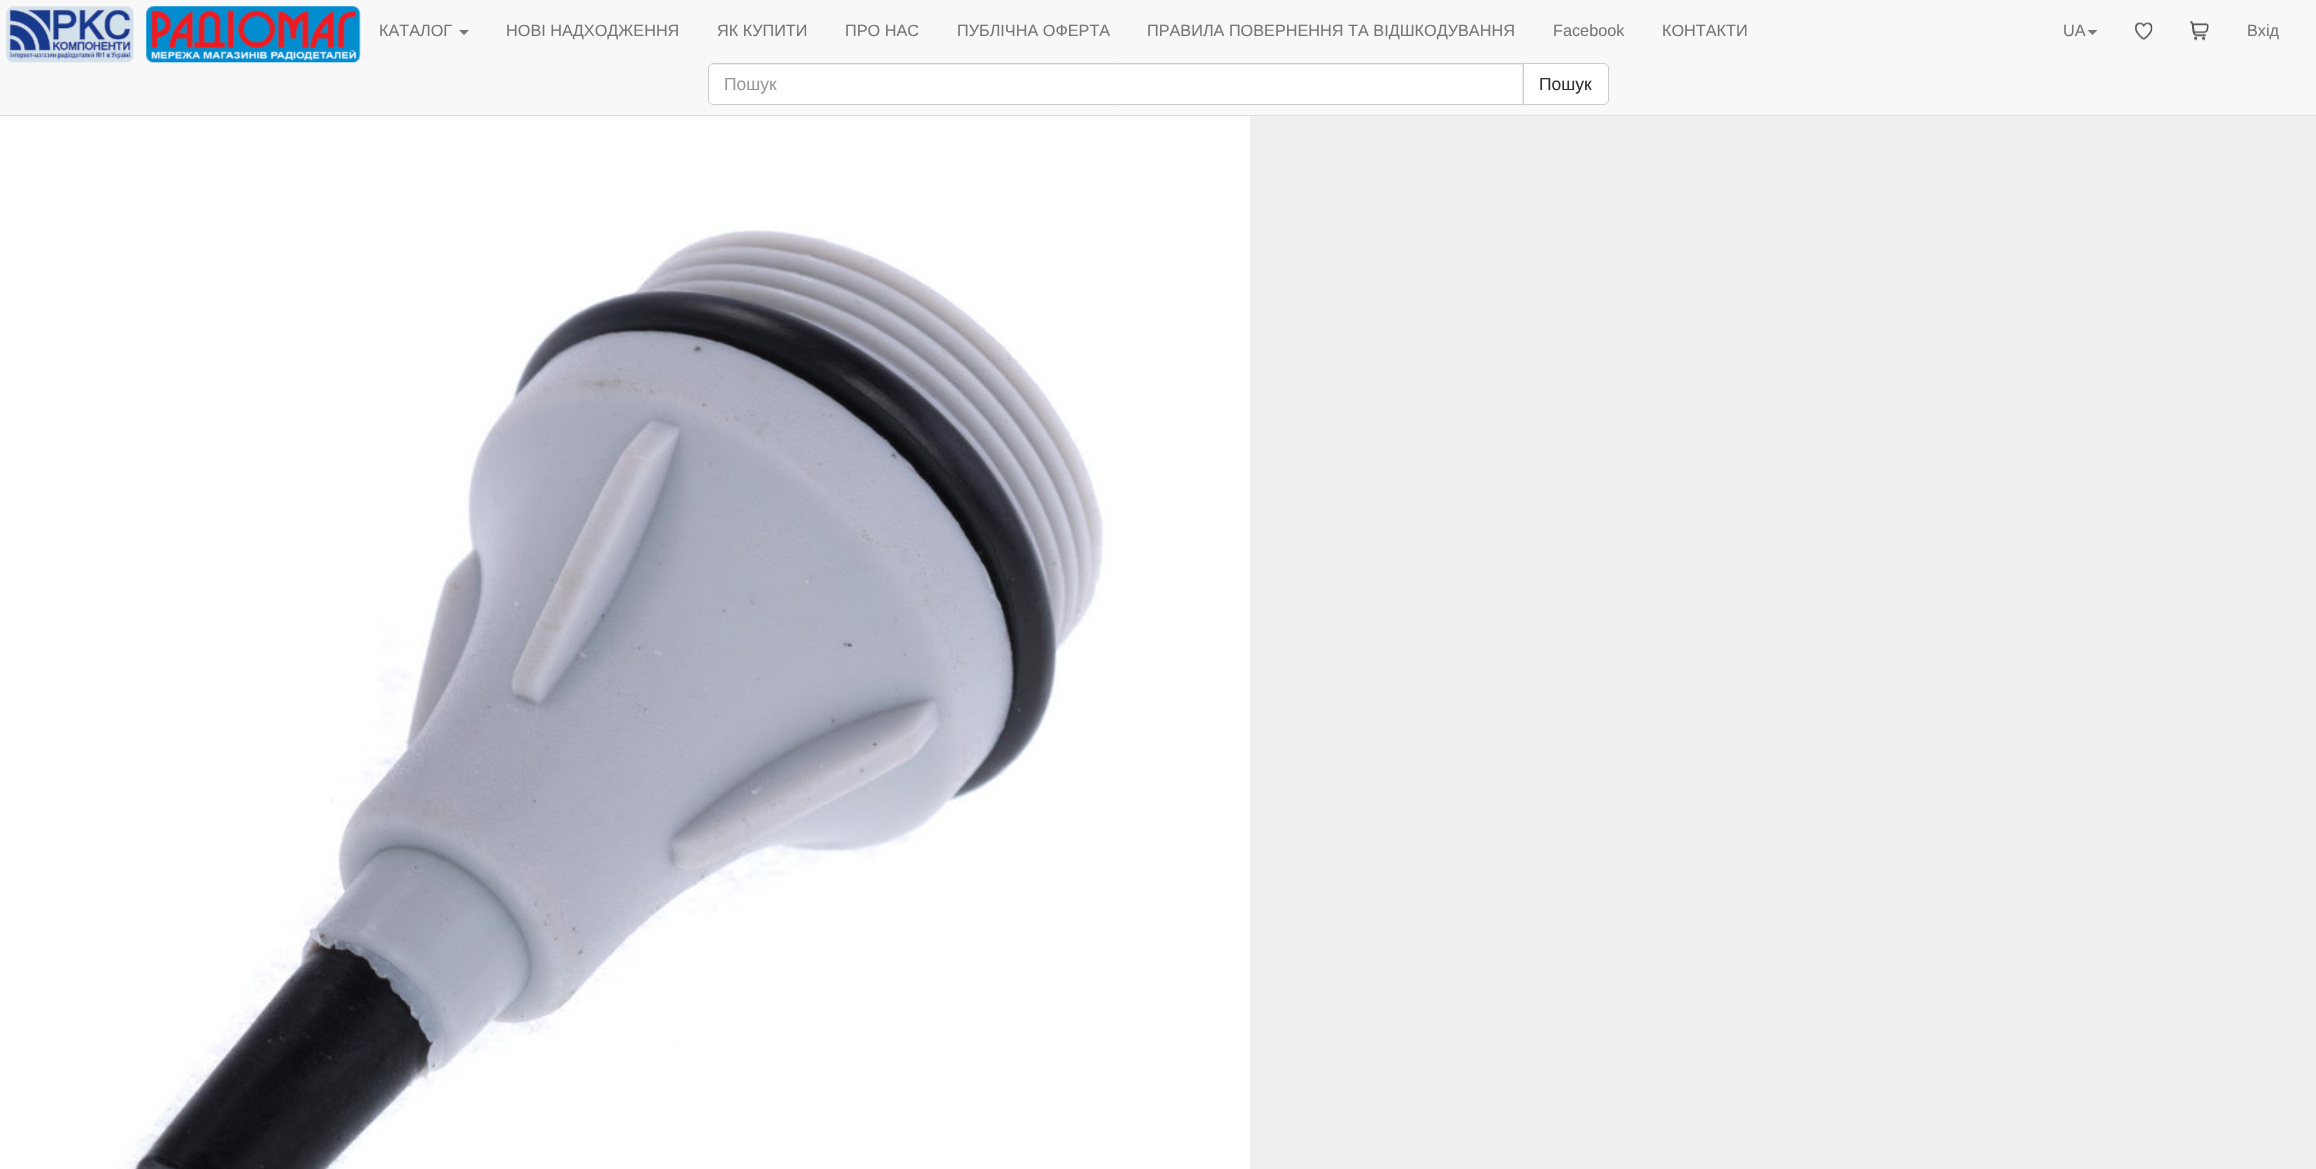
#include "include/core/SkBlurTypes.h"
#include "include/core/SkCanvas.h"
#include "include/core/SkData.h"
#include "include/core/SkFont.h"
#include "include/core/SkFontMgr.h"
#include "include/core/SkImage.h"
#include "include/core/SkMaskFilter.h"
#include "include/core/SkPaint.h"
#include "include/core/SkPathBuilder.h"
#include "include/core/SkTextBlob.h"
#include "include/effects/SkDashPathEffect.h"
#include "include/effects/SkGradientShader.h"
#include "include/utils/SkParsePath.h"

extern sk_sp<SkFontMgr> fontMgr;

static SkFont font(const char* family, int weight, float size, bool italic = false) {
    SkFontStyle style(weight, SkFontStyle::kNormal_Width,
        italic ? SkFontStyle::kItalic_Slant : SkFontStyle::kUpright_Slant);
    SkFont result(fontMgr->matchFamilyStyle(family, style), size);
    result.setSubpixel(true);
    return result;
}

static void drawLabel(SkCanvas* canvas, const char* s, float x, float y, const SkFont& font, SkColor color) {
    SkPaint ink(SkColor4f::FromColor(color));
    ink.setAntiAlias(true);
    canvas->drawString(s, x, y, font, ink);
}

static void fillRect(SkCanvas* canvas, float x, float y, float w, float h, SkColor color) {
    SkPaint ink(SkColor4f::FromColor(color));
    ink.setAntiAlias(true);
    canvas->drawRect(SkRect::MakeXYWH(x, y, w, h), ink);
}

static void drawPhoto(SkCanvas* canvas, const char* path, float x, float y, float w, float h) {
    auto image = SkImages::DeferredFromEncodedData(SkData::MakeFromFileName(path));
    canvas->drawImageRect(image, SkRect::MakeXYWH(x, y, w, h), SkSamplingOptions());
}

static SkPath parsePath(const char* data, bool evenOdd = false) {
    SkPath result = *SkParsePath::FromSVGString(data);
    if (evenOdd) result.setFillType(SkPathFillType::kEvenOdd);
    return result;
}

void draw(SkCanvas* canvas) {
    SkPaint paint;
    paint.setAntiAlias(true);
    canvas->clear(0xFFEEEEEE);
    fillRect(canvas, 0, 0, 2316, 115, 0xFFF8F8F8);
    fillRect(canvas, 0, 115, 2316, 1, 0xFFDDDDDD);
    drawPhoto(canvas, "assets/img1.png", 6, 6, 128, 57);
    drawPhoto(canvas, "assets/img2.png", 146, 6, 215, 57);
    SkFont font1 = font("Liberation Sans", 400, 16.25f);
    drawLabel(canvas, "КАТАЛОГ", 379, 36, font1, 0xFF777777);
    paint.setColor(0xFF777777);
    canvas->drawPath(parsePath("M459 30H469L464 35Z"), paint);
    drawLabel(canvas, "НОВІ НАДХОДЖЕННЯ", 506, 36, font1, 0xFF777777);
    drawLabel(canvas, "ЯК КУПИТИ", 717, 36, font1, 0xFF777777);
    drawLabel(canvas, "ПРО НАС", 845, 36, font1, 0xFF777777);
    drawLabel(canvas, "ПУБЛІЧНА ОФЕРТА", 957, 36, font1, 0xFF777777);
    drawLabel(canvas, "ПРАВИЛА ПОВЕРНЕННЯ ТА ВІДШКОДУВАННЯ", 1147, 36, font1, 0xFF777777);
    drawLabel(canvas, "Facebook", 1553, 36, font1, 0xFF777777);
    drawLabel(canvas, "КОНТАКТИ", 1662, 36, font1, 0xFF777777);
    drawLabel(canvas, "UA", 2063, 36, font1, 0xFF777777);
    canvas->drawPath(parsePath("M2087.5 30H2097.5L2092.5 35Z"), paint);
    drawPhoto(canvas, "assets/img3.png", 2135, 22, 18, 19);
    drawPhoto(canvas, "assets/img4.png", 2190, 21, 19, 20);
    drawLabel(canvas, "Вхід", 2247, 36, font1, 0xFF777777);
    paint.setColor(0xFFFFFFFF);
    canvas->drawPath(parsePath("M713 63H1524V105H713C710 105 708 103 708 100V68C708 65 710 63 713 63Z"), paint);
    paint.setColor(0xFFECECEC);
    canvas->drawPath(parsePath("M712 65H1522V104H1523V64H713C710 64 709 66 709 69C709 67 710 65 712 65Z"), paint);
    paint.setStroke(true);
    paint.setStrokeWidth(1);
    paint.setColor(0xFFCCCCCC);
    canvas->drawPath(parsePath("M713 63.5H1523.5V104.5H713C710.5 104.5 708.5 102.5 708.5 100V68C708.5 65.5 710.5 63.5 713 63.5Z"), paint);
    SkFont font2 = font("Liberation Sans", 400, 17.5f);
    drawLabel(canvas, "Пошук", 724, 90, font2, 0xFF999999);
    paint.setStroke(false);
    paint.setColor(0xFFFFFFFF);
    canvas->drawPath(parsePath("M1523.5 63.5H1604C1606.5 63.5 1608.5 65.5 1608.5 68V100C1608.5 102.5 1606.5 104.5 1604 104.5H1523.5Z"), paint);
    paint.setStroke(true);
    paint.setColor(0xFFCCCCCC);
    canvas->drawPath(parsePath("M1523.5 63.5H1604C1606.5 63.5 1608.5 65.5 1608.5 68V100C1608.5 102.5 1606.5 104.5 1604 104.5H1523.5Z"), paint);
    drawLabel(canvas, "Пошук", 1539, 90, font2, 0xFF333333);
    drawPhoto(canvas, "assets/img5.png", 0, 116, 1250, 1053);
}
